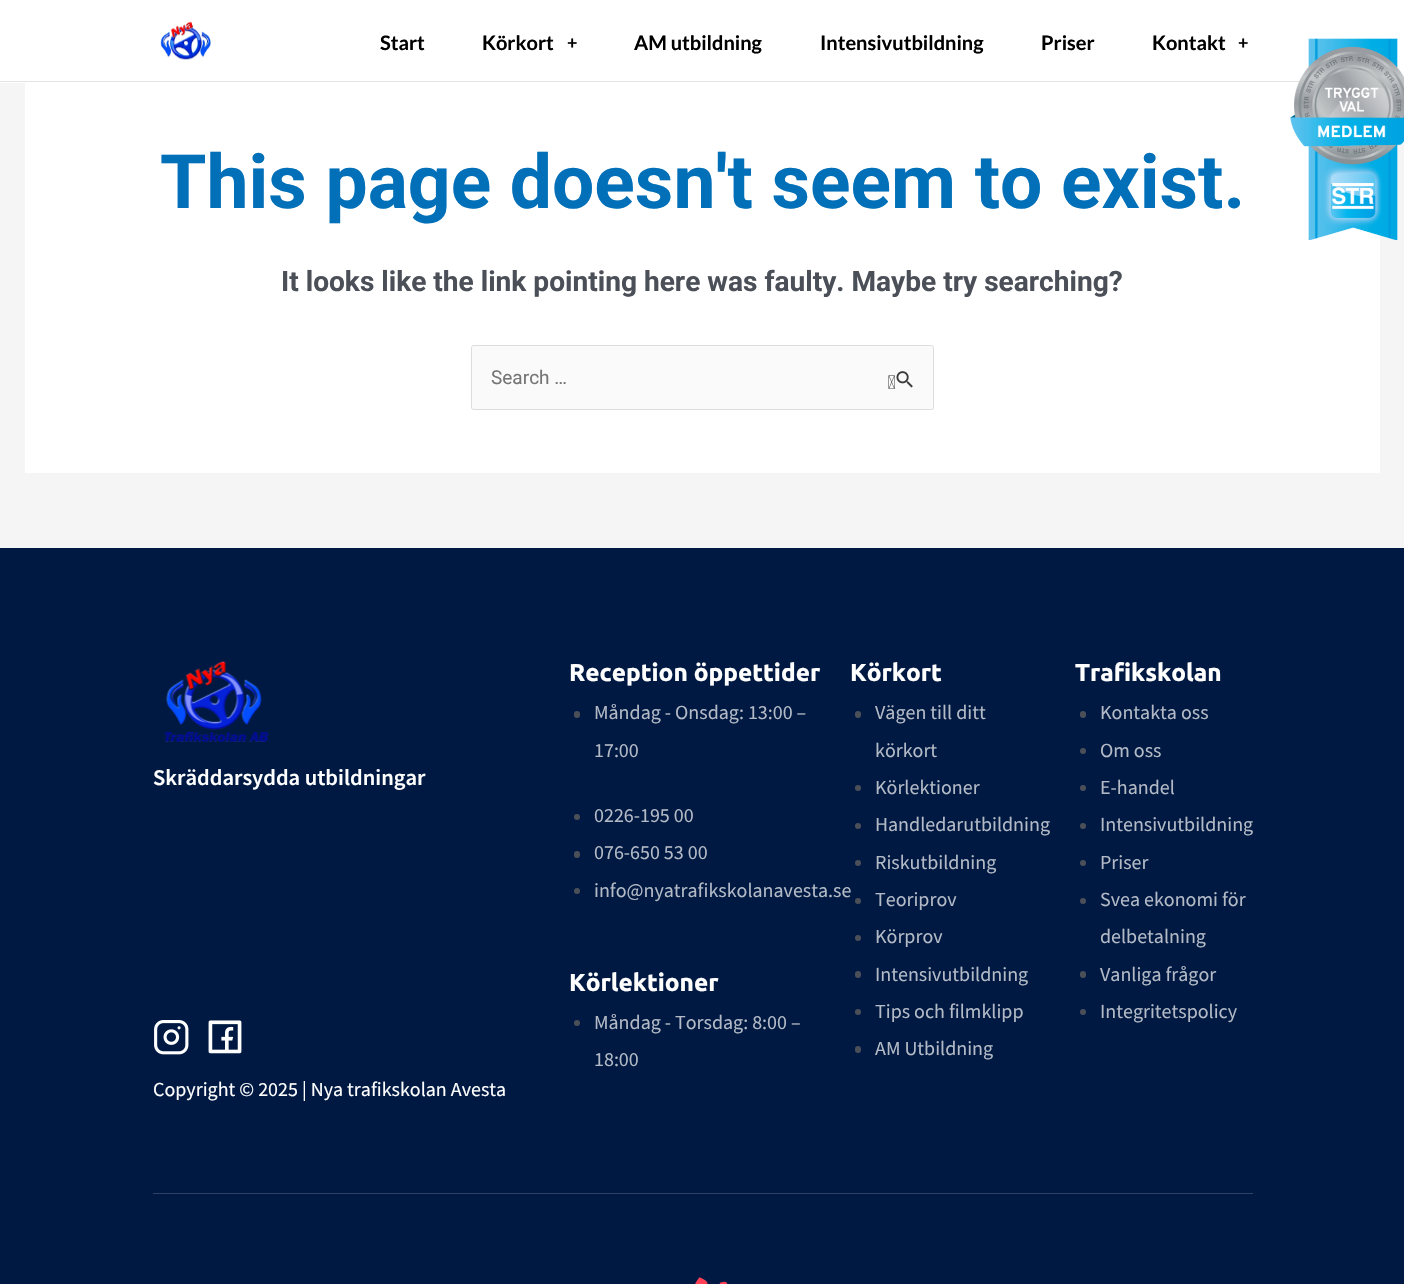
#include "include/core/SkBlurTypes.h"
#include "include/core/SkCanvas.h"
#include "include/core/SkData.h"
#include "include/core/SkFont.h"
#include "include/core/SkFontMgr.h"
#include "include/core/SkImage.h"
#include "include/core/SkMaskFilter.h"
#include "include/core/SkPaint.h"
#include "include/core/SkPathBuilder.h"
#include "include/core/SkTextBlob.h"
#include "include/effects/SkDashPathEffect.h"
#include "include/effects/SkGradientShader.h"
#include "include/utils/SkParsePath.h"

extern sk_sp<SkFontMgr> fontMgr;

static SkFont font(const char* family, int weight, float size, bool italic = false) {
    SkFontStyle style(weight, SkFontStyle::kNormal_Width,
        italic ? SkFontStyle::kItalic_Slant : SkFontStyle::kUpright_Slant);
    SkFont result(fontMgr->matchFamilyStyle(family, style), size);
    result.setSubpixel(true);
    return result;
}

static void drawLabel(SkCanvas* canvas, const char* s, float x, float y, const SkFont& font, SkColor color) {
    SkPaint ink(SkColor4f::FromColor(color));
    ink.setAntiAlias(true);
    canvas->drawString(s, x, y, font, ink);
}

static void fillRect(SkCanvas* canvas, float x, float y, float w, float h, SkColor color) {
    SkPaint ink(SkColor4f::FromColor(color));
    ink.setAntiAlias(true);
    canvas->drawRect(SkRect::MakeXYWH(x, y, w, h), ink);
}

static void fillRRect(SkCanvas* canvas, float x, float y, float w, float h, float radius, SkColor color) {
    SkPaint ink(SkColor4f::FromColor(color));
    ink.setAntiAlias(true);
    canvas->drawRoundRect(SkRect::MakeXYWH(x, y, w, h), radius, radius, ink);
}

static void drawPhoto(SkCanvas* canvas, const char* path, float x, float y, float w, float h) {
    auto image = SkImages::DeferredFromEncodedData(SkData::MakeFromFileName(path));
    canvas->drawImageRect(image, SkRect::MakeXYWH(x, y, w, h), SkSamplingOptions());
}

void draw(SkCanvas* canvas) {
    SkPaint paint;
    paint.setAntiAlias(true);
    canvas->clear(0xFFF5F5F5);
    fillRect(canvas, 0, 0, 1404, 83, 0xFFFFFFFF);
    fillRect(canvas, 0, 81, 1300, 1, 0xFFE3E3E3);
    drawPhoto(canvas, "assets/img1.png", 160, 21, 51, 39);
    SkFont font1 = font("Lato", 700, 20);
    drawLabel(canvas, "Start", 380, 50, font1, 0xFF000000);
    drawLabel(canvas, "Körkort", 482, 50, font1, 0xFF000000);
    SkFont font2 = font("Lato", 700, 18);
    drawLabel(canvas, "+", 567, 49, font2, 0xFF000000);
    drawLabel(canvas, "AM utbildning", 634, 50, font1, 0xFF000000);
    drawLabel(canvas, "Intensivutbildning", 820, 50, font1, 0xFF000000);
    drawLabel(canvas, "Priser", 1041, 50, font1, 0xFF000000);
    drawLabel(canvas, "Kontakt", 1152, 50, font1, 0xFF000000);
    drawLabel(canvas, "+", 1238, 49, font2, 0xFF000000);
    fillRect(canvas, 25, 83, 1355, 390, 0xFFFFFFFF);
    drawPhoto(canvas, "assets/img2.png", 1290, 38, 114, 202);
    SkFont font3 = font("Roboto", 700, 75);
    drawLabel(canvas, "This page doesn't seem to exist.", 160, 208, font3, 0xFF0170B9);
    SkFont font4 = font("Roboto", 700, 28.1f);
    drawLabel(canvas, "It looks like the link pointing here was faulty. Maybe try searching?", 281, 291, font4, 0xFF4B4F58);
    paint.setColor(0xFFFAFAFA);
    canvas->drawRoundRect(SkRect::MakeXYWH(471.5f, 345.5f, 462, 64), 2, 2, paint);
    paint.setStroke(true);
    paint.setStrokeWidth(1);
    paint.setColor(0xFFDDDDDD);
    canvas->drawRoundRect(SkRect::MakeXYWH(471.5f, 345.5f, 462, 64), 2, 2, paint);
    SkFont font5 = font("Roboto", 400, 19);
    drawLabel(canvas, "Search …", 491, 384, font5, 0xFF757575);
    drawPhoto(canvas, "assets/img3.png", 888, 375, 7, 14);
    drawPhoto(canvas, "assets/img4.png", 896, 371, 17, 17);
    fillRect(canvas, 0, 548, 1404, 736, 0xFF001942);
    drawPhoto(canvas, "assets/img5.png", 164, 661, 105, 81);
    SkFont font6 = font("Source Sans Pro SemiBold", 600, 22.5f);
    drawLabel(canvas, "Skräddarsydda utbildningar", 153, 785, font6, 0xFFFFFFFF);
    drawPhoto(canvas, "assets/img6.png", 154, 1020, 35, 35);
    drawPhoto(canvas, "assets/img7.png", 208, 1020, 34, 34);
    SkFont font7 = font("Source Sans Pro", 400, 20);
    drawLabel(canvas, "Copyright © 2025 | Nya trafikskolan Avesta", 153, 1096, font7, 0xFFFFFFFF);
    SkFont font8 = font("Ubuntu", 700, 24.4f);
    drawLabel(canvas, "Reception öppettider", 569, 681, font8, 0xFFFFFFFF);
    fillRRect(canvas, 574, 711, 6, 7, 3, 0xFF4B4F58);
    drawLabel(canvas, "Måndag - Onsdag: 13:00 –", 594, 719, font7, 0xFFB3BAC6);
    drawLabel(canvas, "17:00", 594, 757, font7, 0xFFB3BAC6);
    paint.setStroke(false);
    paint.setColor(0xFF4B4F58);
    canvas->drawCircle(577, 817, 3, paint);
    drawLabel(canvas, "0226-195 00", 594, 822, font7, 0xFFB3BAC6);
    fillRRect(canvas, 574, 851, 6, 7, 3, 0xFF4B4F58);
    drawLabel(canvas, "076-650 53 00", 594, 859, font7, 0xFFB3BAC6);
    canvas->drawCircle(577, 891, 3, paint);
    drawLabel(canvas, "info@nyatrafikskolanavesta.se", 594, 897, font7, 0xFFB3BAC6);
    drawLabel(canvas, "Körlektioner", 569, 991, font8, 0xFFFFFFFF);
    canvas->drawCircle(577, 1023, 3, paint);
    drawLabel(canvas, "Måndag - Torsdag: 8:00 –", 594, 1029, font7, 0xFFB3BAC6);
    drawLabel(canvas, "18:00", 594, 1066, font7, 0xFFB3BAC6);
    drawLabel(canvas, "Körkort", 850, 681, font8, 0xFFFFFFFF);
    fillRRect(canvas, 855, 711, 6, 7, 3, 0xFF4B4F58);
    drawLabel(canvas, "Vägen till ditt", 875, 719, font7, 0xFFB3BAC6);
    drawLabel(canvas, "körkort", 875, 757, font7, 0xFFB3BAC6);
    canvas->drawCircle(858, 788, 3, paint);
    drawLabel(canvas, "Körlektioner", 875, 794, font7, 0xFFB3BAC6);
    canvas->drawCircle(858, 826, 3, paint);
    drawLabel(canvas, "Handledarutbildning", 875, 831, font7, 0xFFB3BAC6);
    canvas->drawCircle(858, 863, 3, paint);
    drawLabel(canvas, "Riskutbildning", 875, 869, font7, 0xFFB3BAC6);
    canvas->drawCircle(858, 901, 3, paint);
    drawLabel(canvas, "Teoriprov", 875, 906, font7, 0xFFB3BAC6);
    canvas->drawCircle(858, 938, 3, paint);
    drawLabel(canvas, "Körprov", 875, 943, font7, 0xFFB3BAC6);
    fillRRect(canvas, 855, 971, 6, 7, 3, 0xFF4B4F58);
    drawLabel(canvas, "Intensivutbildning", 875, 981, font7, 0xFFB3BAC6);
    canvas->drawCircle(858, 1012, 3, paint);
    drawLabel(canvas, "Tips och filmklipp", 875, 1018, font7, 0xFFB3BAC6);
    fillRRect(canvas, 855, 1046, 6, 7, 3, 0xFF4B4F58);
    drawLabel(canvas, "AM Utbildning", 875, 1055, font7, 0xFFB3BAC6);
    drawLabel(canvas, "Trafikskolan", 1075, 681, font8, 0xFFFFFFFF);
    fillRRect(canvas, 1080, 711, 6, 7, 3, 0xFF4B4F58);
    drawLabel(canvas, "Kontakta oss", 1100, 719, font7, 0xFFB3BAC6);
    canvas->drawCircle(1083, 751, 3, paint);
    drawLabel(canvas, "Om oss", 1100, 757, font7, 0xFFB3BAC6);
    canvas->drawCircle(1083, 788, 3, paint);
    drawLabel(canvas, "E-handel", 1100, 794, font7, 0xFFB3BAC6);
    canvas->drawCircle(1083, 826, 3, paint);
    drawLabel(canvas, "Intensivutbildning", 1100, 831, font7, 0xFFB3BAC6);
    canvas->drawCircle(1083, 863, 3, paint);
    drawLabel(canvas, "Priser", 1100, 869, font7, 0xFFB3BAC6);
    canvas->drawCircle(1083, 901, 3, paint);
    drawLabel(canvas, "Svea ekonomi för", 1100, 906, font7, 0xFFB3BAC6);
    drawLabel(canvas, "delbetalning", 1100, 943, font7, 0xFFB3BAC6);
    fillRRect(canvas, 1080, 971, 6, 7, 3, 0xFF4B4F58);
    drawLabel(canvas, "Vanliga frågor", 1100, 981, font7, 0xFFB3BAC6);
    canvas->drawCircle(1083, 1012, 3, paint);
    drawLabel(canvas, "Integritetspolicy", 1100, 1018, font7, 0xFFB3BAC6);
    fillRect(canvas, 153, 1193, 1100, 1, 0xFF2E4264);
    drawPhoto(canvas, "assets/img8.png", 695, 1277, 33, 7);
}
